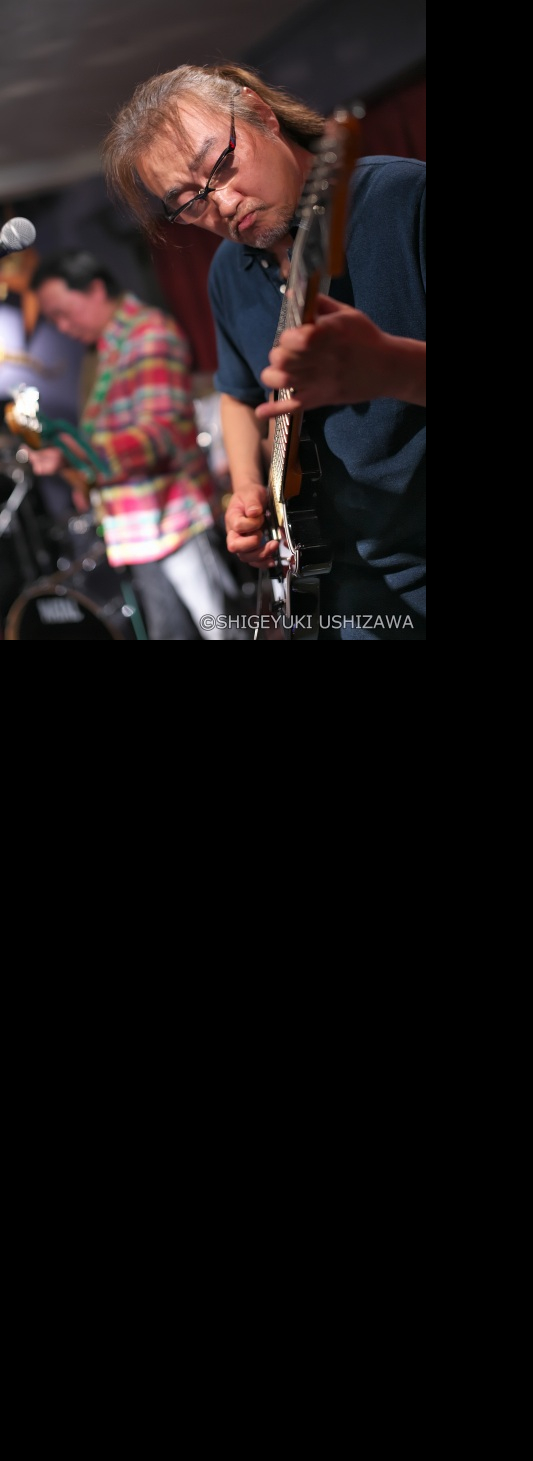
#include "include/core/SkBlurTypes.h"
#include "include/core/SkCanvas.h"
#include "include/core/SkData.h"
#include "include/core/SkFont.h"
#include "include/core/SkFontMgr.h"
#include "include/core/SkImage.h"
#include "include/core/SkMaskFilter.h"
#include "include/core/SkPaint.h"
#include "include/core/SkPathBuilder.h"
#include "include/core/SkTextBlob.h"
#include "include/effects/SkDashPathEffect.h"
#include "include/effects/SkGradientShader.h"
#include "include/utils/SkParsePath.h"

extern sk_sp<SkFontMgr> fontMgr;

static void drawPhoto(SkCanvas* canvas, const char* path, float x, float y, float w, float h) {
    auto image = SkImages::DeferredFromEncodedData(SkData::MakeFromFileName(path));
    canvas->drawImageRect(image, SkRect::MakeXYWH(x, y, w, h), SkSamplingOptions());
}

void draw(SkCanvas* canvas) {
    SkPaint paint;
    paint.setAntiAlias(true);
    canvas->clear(0xFF000000);
    drawPhoto(canvas, "assets/img1.png", 0, 0, 426, 640);
}
